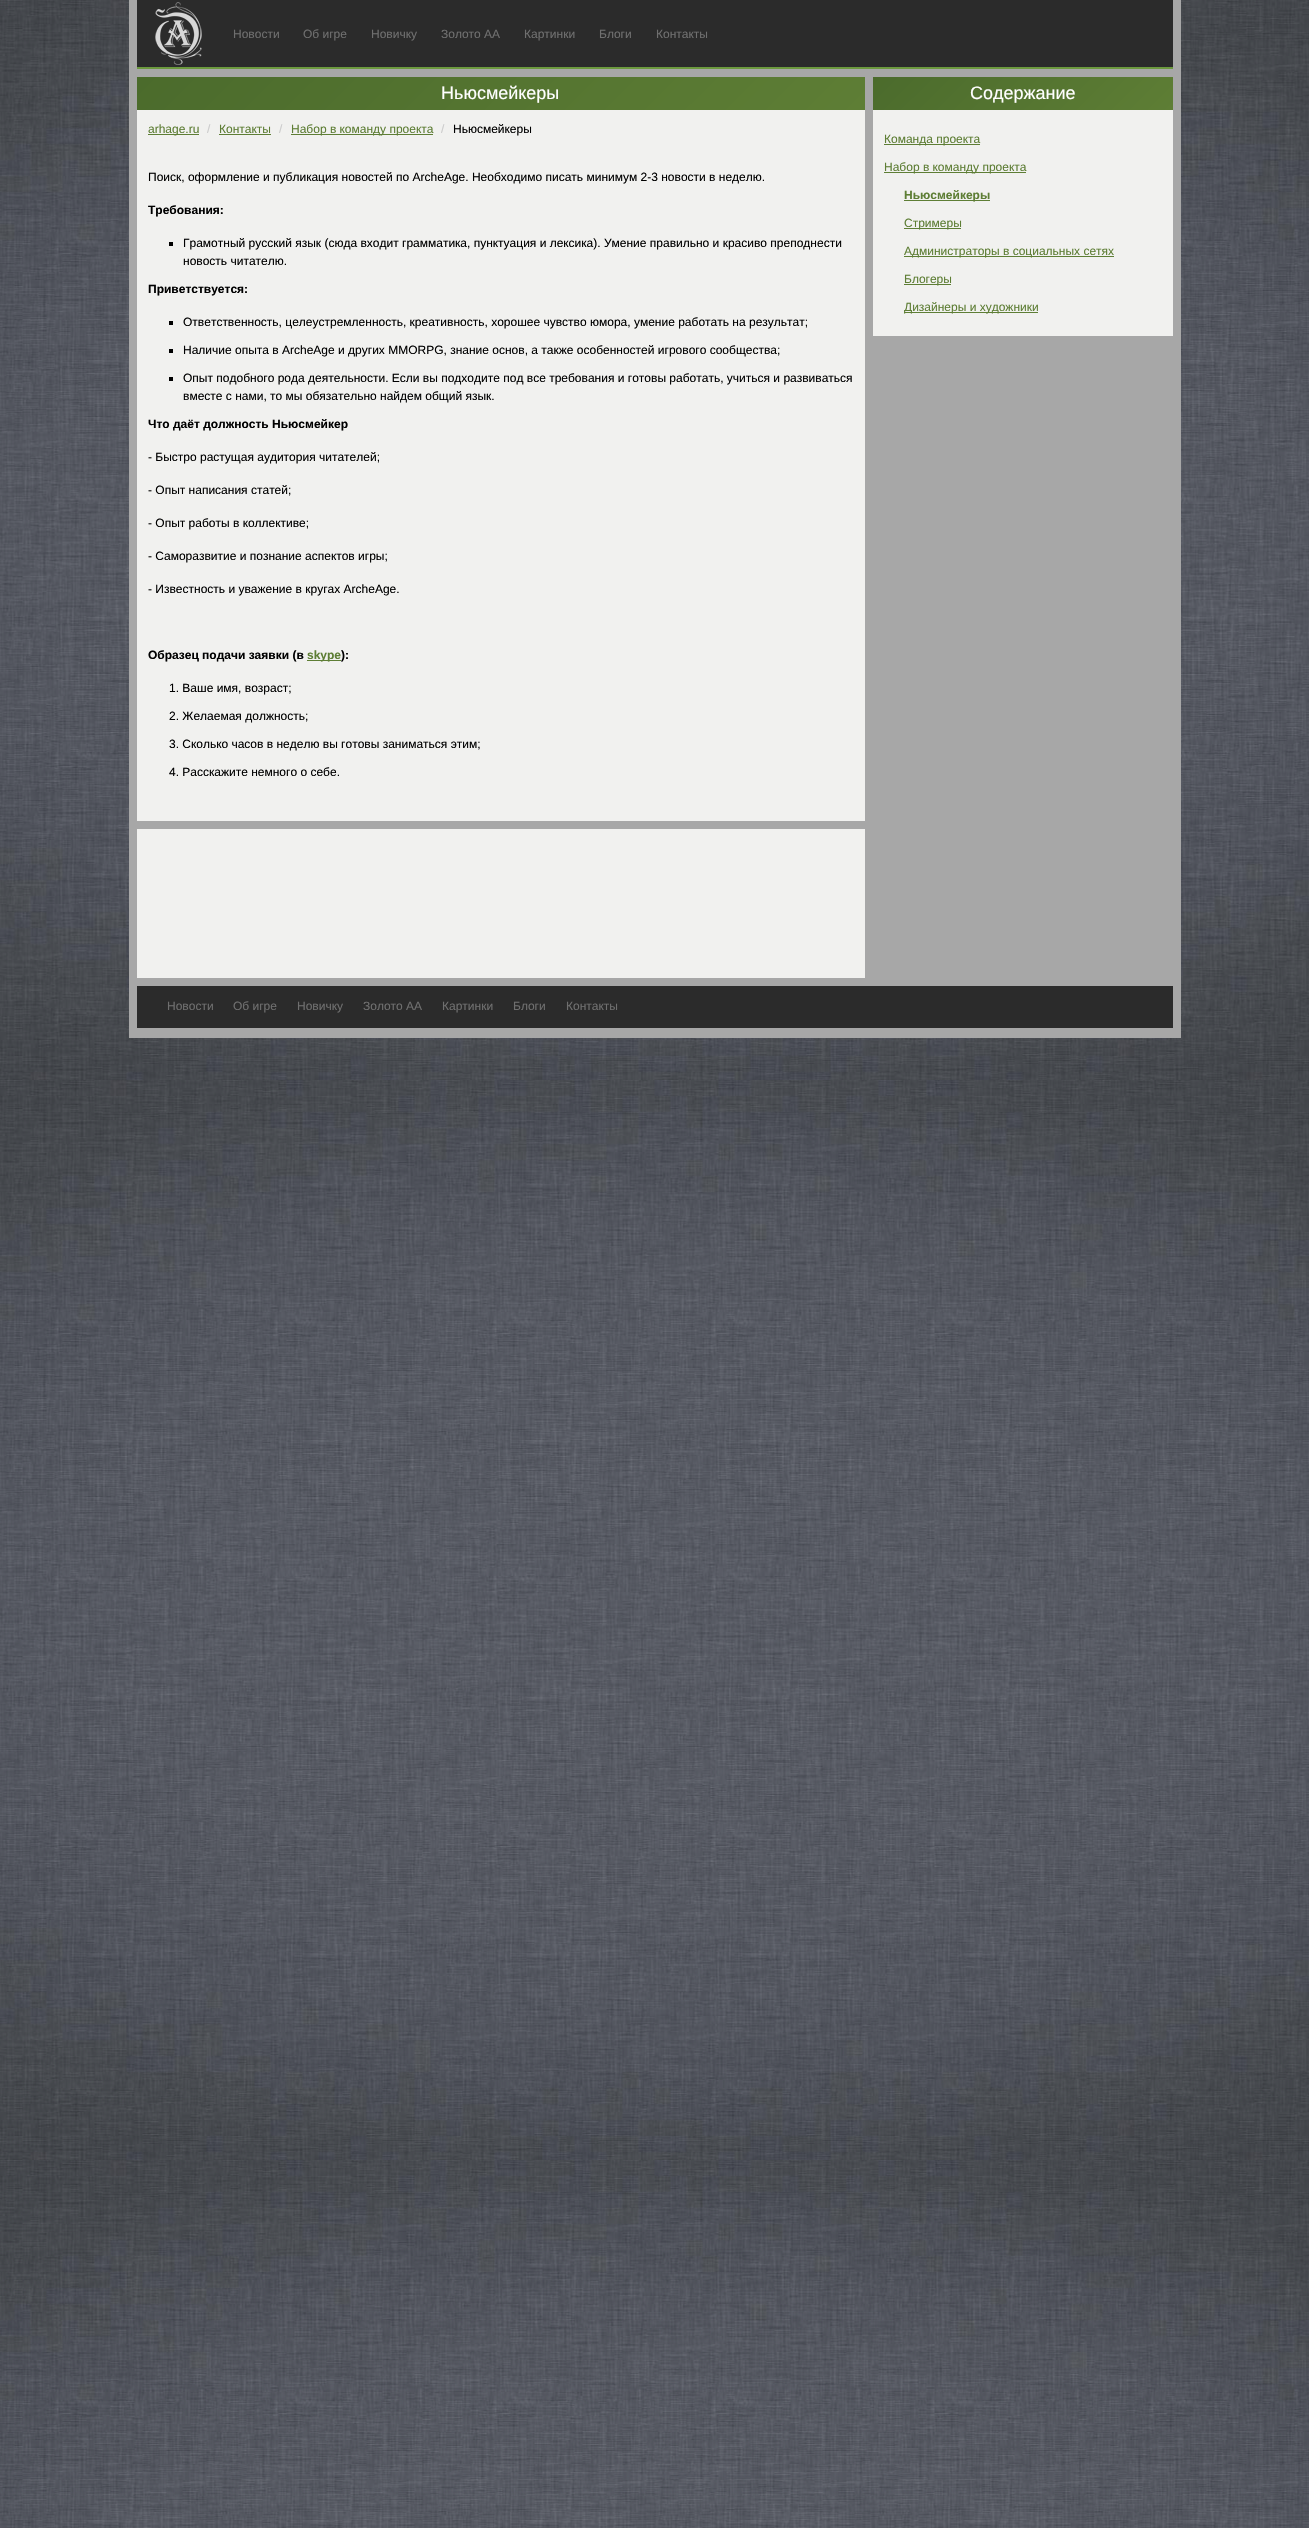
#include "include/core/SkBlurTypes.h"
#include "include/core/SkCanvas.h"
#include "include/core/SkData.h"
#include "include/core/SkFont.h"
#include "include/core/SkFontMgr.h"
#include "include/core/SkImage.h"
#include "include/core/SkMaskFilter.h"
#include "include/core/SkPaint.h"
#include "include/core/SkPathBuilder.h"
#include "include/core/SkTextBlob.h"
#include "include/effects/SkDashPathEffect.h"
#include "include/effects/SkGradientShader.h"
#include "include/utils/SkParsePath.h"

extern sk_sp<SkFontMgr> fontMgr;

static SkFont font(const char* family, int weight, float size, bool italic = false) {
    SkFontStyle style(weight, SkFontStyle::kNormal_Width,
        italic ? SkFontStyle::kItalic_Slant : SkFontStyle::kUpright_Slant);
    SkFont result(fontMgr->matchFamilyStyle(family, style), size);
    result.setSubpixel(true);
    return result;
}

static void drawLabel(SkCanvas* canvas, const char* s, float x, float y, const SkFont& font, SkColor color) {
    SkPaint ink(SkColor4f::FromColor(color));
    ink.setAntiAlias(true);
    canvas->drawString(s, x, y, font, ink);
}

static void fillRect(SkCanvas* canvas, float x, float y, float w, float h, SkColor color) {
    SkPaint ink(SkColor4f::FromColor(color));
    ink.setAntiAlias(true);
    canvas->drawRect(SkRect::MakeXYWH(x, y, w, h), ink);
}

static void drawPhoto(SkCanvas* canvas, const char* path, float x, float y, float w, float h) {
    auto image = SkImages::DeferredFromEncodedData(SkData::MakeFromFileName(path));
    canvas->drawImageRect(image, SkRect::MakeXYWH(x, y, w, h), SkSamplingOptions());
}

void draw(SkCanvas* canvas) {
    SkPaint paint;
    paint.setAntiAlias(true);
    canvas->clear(0xFFFFFFFF);
    drawPhoto(canvas, "assets/img1.png", 0, 0, 1309, 2528);
    fillRect(canvas, 129, 0, 1052, 1038, 0xFFA7A7A7);
    fillRect(canvas, 137, 0, 1036, 67, 0xFF2B2B2B);
    drawPhoto(canvas, "assets/img2.png", 155, 2, 47, 63);
    fillRect(canvas, 137, 67, 1036, 2, 0xFF6C993E);
    SkFont font1 = font("Liberation Sans", 400, 12);
    drawLabel(canvas, "Новости", 233, 38, font1, 0xFF6F6F6F);
    drawLabel(canvas, "Об игре", 303, 38, font1, 0xFF6F6F6F);
    drawLabel(canvas, "Новичку", 371, 38, font1, 0xFF6F6F6F);
    drawLabel(canvas, "Золото АА", 441, 38, font1, 0xFF6F6F6F);
    drawLabel(canvas, "Картинки", 524, 38, font1, 0xFF6F6F6F);
    drawLabel(canvas, "Блоги", 599, 38, font1, 0xFF6F6F6F);
    drawLabel(canvas, "Контакты", 656, 38, font1, 0xFF6F6F6F);
    fillRect(canvas, 137, 110, 728, 711, 0xFFF1F1EF);
    {
        const SkColor colors[] = {0xFF4B6B2C, 0xFF5E7E35};
        const float stops[] = {0, 1};
        const SkPoint ends[] = {{311, -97}, {691, 284}};
        paint.setShader(SkGradientShader::MakeLinear(ends, colors, stops, 2, SkTileMode::kClamp));
        paint.setAlpha(255);
    }
    canvas->drawRect(SkRect::MakeXYWH(137, 77, 728, 33), paint);
    SkFont font2 = font("Liberation Sans", 400, 18);
    drawLabel(canvas, "Ньюсмейкеры", 441, 99, font2, 0xFFFFFFFF);
    fillRect(canvas, 148, 134, 51, 1, 0xFF5E7E35);
    drawLabel(canvas, "arhage.ru", 148, 133, font1, 0xFF5E7E35);
    drawLabel(canvas, "/", 207, 133, font1, 0xFFCCCCCC);
    drawLabel(canvas, "Контакты", 219, 133, font1, 0xFF5E7E35);
    fillRect(canvas, 219, 134, 52, 1, 0xFF5E7E35);
    drawLabel(canvas, "/", 279, 133, font1, 0xFFCCCCCC);
    fillRect(canvas, 291, 134, 142, 1, 0xFF5E7E35);
    drawLabel(canvas, "Набор в команду проекта", 291, 133, font1, 0xFF5E7E35);
    drawLabel(canvas, "/", 441, 133, font1, 0xFFCCCCCC);
    drawLabel(canvas, "Ньюсмейкеры", 453, 133, font1, 0xFF000000);
    drawLabel(canvas, "Поиск, оформление и публикация новостей по ArcheAge. Необходимо писать минимум 2-3 новости в неделю.", 148, 181, font1, 0xFF000000);
    SkFont font3 = font("Liberation Sans", 700, 12);
    drawLabel(canvas, "Требования:", 148, 214, font3, 0xFF000000);
    fillRect(canvas, 169, 242, 4, 4, 0xFF000000);
    drawLabel(canvas, "Грамотный русский язык (сюда входит грамматика, пунктуация и лексика). Умение правильно и красиво преподнести", 183, 247, font1, 0xFF000000);
    drawLabel(canvas, "новость читателю.", 183, 265, font1, 0xFF000000);
    drawLabel(canvas, "Приветствуется:", 148, 293, font3, 0xFF000000);
    fillRect(canvas, 169, 321, 4, 4, 0xFF000000);
    drawLabel(canvas, "Ответственность, целеустремленность, креативность, хорошее чувство юмора, умение работать на результат;", 183, 326, font1, 0xFF000000);
    fillRect(canvas, 169, 349, 4, 4, 0xFF000000);
    drawLabel(canvas, "Наличие опыта в ArcheAge и других MMORPG, знание основ, а также особенностей игрового сообщества;", 183, 354, font1, 0xFF000000);
    fillRect(canvas, 169, 377, 4, 4, 0xFF000000);
    drawLabel(canvas, "Опыт подобного рода деятельности. Если вы подходите под все требования и готовы работать, учиться и развиваться", 183, 382, font1, 0xFF000000);
    drawLabel(canvas, "вместе с нами, то мы обязательно найдем общий язык.", 183, 400, font1, 0xFF000000);
    drawLabel(canvas, "Что даёт должность Ньюсмейкер", 148, 428, font3, 0xFF000000);
    drawLabel(canvas, "- Быстро растущая аудитория читателей;", 148, 461, font1, 0xFF000000);
    drawLabel(canvas, "- Опыт написания статей;", 148, 494, font1, 0xFF000000);
    drawLabel(canvas, "- Опыт работы в коллективе;", 148, 527, font1, 0xFF000000);
    drawLabel(canvas, "- Саморазвитие и познание аспектов игры;", 148, 560, font1, 0xFF000000);
    drawLabel(canvas, "- Известность и уважение в кругах ArcheAge.", 148, 593, font1, 0xFF000000);
    drawLabel(canvas, "Образец подачи заявки (в", 148, 659, font3, 0xFF000000);
    fillRect(canvas, 307, 660, 34, 1, 0xFF5E7E35);
    drawLabel(canvas, "skype", 307, 659, font3, 0xFF5E7E35);
    drawLabel(canvas, "):", 341, 659, font3, 0xFF000000);
    drawLabel(canvas, "1. Ваше имя, возраст;", 169, 692, font1, 0xFF000000);
    drawLabel(canvas, "2. Желаемая должность;", 169, 720, font1, 0xFF000000);
    drawLabel(canvas, "3. Сколько часов в неделю вы готовы заниматься этим;", 169, 748, font1, 0xFF000000);
    drawLabel(canvas, "4. Расскажите немного о себе.", 169, 776, font1, 0xFF000000);
    fillRect(canvas, 137, 829, 728, 149, 0xFFF1F1EF);
    fillRect(canvas, 873, 110, 300, 226, 0xFFF1F1EF);
    {
        const SkColor colors[] = {0xFF4B6B2C, 0xFF5E7E35};
        const float stops[] = {0, 1};
        const SkPoint ends[] = {{940, 10}, {1106, 177}};
        paint.setShader(SkGradientShader::MakeLinear(ends, colors, stops, 2, SkTileMode::kClamp));
        paint.setAlpha(255);
    }
    canvas->drawRect(SkRect::MakeXYWH(873, 77, 300, 33), paint);
    drawLabel(canvas, "Содержание", 970, 99, font2, 0xFFFFFFFF);
    fillRect(canvas, 884, 144, 96, 1, 0xFF5E7E35);
    drawLabel(canvas, "Команда проекта", 884, 143, font1, 0xFF5E7E35);
    fillRect(canvas, 884, 172, 142, 1, 0xFF5E7E35);
    drawLabel(canvas, "Набор в команду проекта", 884, 171, font1, 0xFF5E7E35);
    fillRect(canvas, 904, 200, 86, 1, 0xFF5E7E35);
    drawLabel(canvas, "Ньюсмейкеры", 904, 199, font3, 0xFF5E7E35);
    fillRect(canvas, 904, 228, 57, 1, 0xFF5E7E35);
    drawLabel(canvas, "Стримеры", 904, 227, font1, 0xFF5E7E35);
    fillRect(canvas, 904, 256, 210, 1, 0xFF5E7E35);
    drawLabel(canvas, "Администраторы в социальных сетях", 904, 255, font1, 0xFF5E7E35);
    fillRect(canvas, 904, 284, 47, 1, 0xFF5E7E35);
    drawLabel(canvas, "Блогеры", 904, 283, font1, 0xFF5E7E35);
    fillRect(canvas, 904, 312, 134, 1, 0xFF5E7E35);
    drawLabel(canvas, "Дизайнеры и художники", 904, 311, font1, 0xFF5E7E35);
    fillRect(canvas, 137, 986, 1036, 42, 0xFF2B2B2B);
    drawLabel(canvas, "Новости", 167, 1010, font1, 0xFF6F6F6F);
    drawLabel(canvas, "Об игре", 233, 1010, font1, 0xFF6F6F6F);
    drawLabel(canvas, "Новичку", 297, 1010, font1, 0xFF6F6F6F);
    drawLabel(canvas, "Золото АА", 363, 1010, font1, 0xFF6F6F6F);
    drawLabel(canvas, "Картинки", 442, 1010, font1, 0xFF6F6F6F);
    drawLabel(canvas, "Блоги", 513, 1010, font1, 0xFF6F6F6F);
    drawLabel(canvas, "Контакты", 566, 1010, font1, 0xFF6F6F6F);
}
